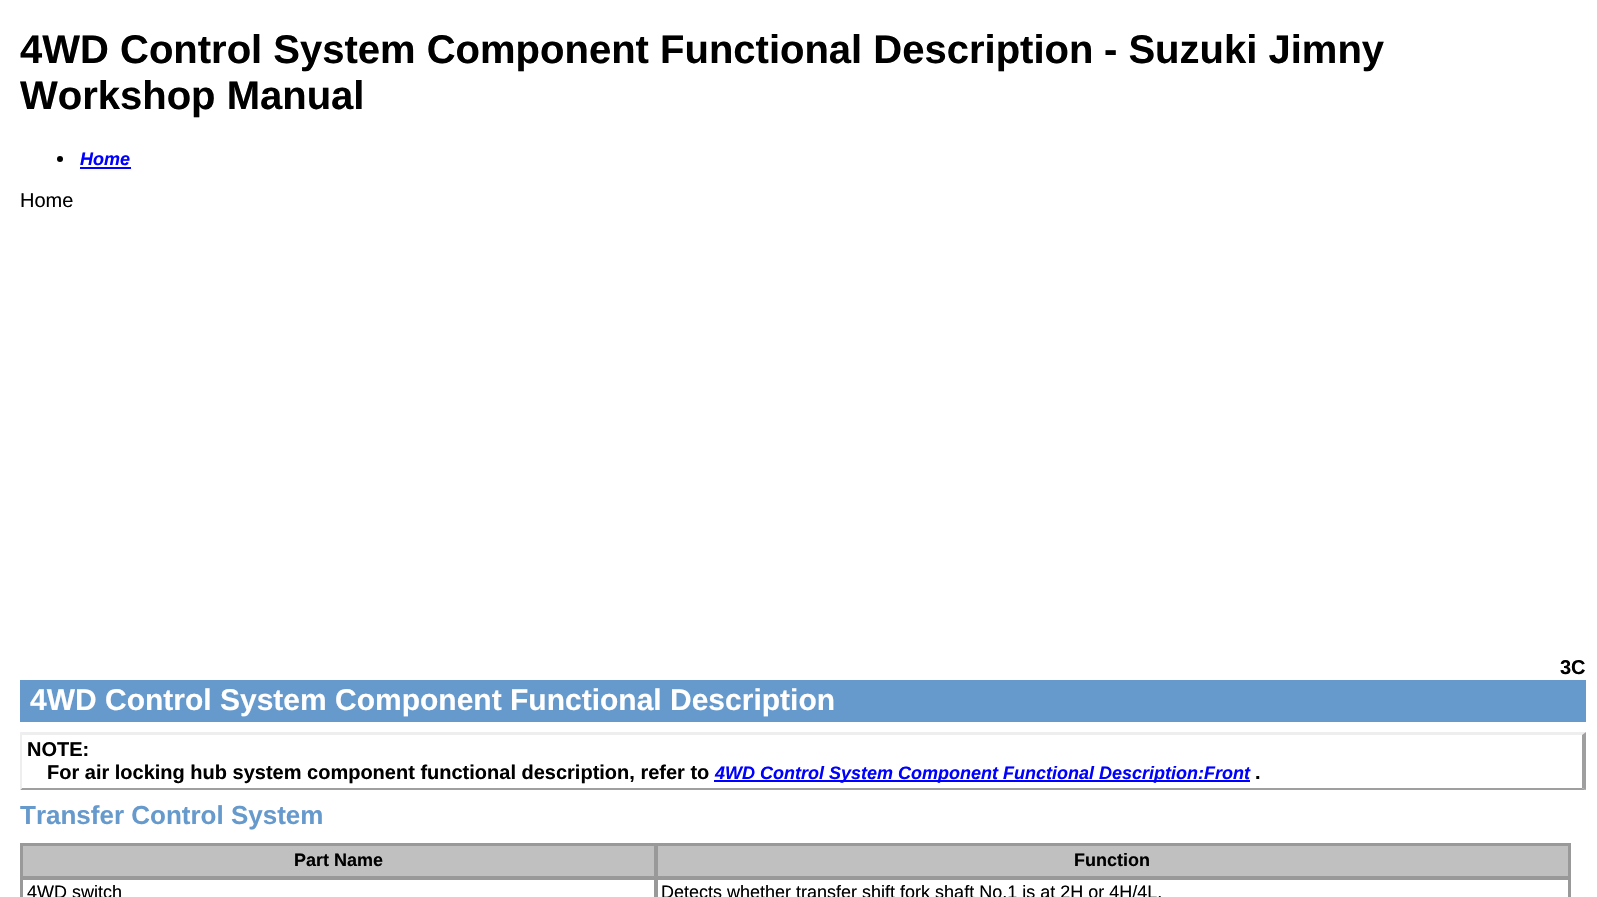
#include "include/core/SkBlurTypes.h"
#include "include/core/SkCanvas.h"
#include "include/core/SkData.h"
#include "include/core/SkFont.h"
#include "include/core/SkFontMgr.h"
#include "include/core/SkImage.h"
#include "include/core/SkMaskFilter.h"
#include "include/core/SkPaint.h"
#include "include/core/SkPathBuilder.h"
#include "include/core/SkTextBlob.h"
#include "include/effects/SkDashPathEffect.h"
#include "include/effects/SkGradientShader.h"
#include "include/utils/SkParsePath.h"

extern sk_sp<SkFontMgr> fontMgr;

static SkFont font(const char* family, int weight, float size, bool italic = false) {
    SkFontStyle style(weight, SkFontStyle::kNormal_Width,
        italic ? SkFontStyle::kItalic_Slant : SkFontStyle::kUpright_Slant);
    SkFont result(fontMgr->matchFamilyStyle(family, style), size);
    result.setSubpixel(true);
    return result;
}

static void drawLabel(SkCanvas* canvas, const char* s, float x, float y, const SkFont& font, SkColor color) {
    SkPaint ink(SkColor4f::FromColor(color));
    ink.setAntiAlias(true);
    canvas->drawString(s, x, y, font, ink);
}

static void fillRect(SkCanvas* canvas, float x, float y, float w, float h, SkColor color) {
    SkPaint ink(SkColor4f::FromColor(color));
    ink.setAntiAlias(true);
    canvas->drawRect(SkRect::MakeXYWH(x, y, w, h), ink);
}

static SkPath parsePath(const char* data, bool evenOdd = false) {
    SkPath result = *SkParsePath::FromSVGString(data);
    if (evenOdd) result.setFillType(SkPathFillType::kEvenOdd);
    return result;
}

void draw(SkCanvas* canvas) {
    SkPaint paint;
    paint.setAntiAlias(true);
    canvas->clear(0xFFFFFFFF);
    SkFont font1 = font("Liberation Sans", 700, 40);
    drawLabel(canvas, "4WD Control System Component Functional Description", 20, 63, font1, 0xFF000000);
    drawLabel(canvas, "- Suzuki Jimny", 1104, 63, font1, 0xFF000000);
    drawLabel(canvas, "Workshop Manual", 20, 109, font1, 0xFF000000);
    paint.setColor(0xFF000000);
    canvas->drawCircle(60, 159, 3, paint);
    SkFont font2 = font("Liberation Sans", 700, 18, true);
    drawLabel(canvas, "Home", 80, 165, font2, 0xFF0000FF);
    fillRect(canvas, 80, 167, 51, 2, 0xFF0000FF);
    SkFont font3 = font("Liberation Sans", 400, 20);
    drawLabel(canvas, "Home", 20, 207, font3, 0xFF000000);
    SkFont font4 = font("Liberation Sans", 700, 20);
    drawLabel(canvas, "3C", 1560, 674, font4, 0xFF000000);
    fillRect(canvas, 20, 680, 1566, 42, 0xFF6699CC);
    SkFont font5 = font("Liberation Sans", 700, 30);
    drawLabel(canvas, "4WD Control System Component Functional Description", 30, 710, font5, 0xFFFFFFFF);
    paint.setColor(0xFFEEEEEE);
    canvas->drawPath(parsePath("M20 732H1586L1582 735H22Z"), paint);
    paint.setColor(0xFF9F9F9F);
    canvas->drawPath(parsePath("M1586 732V790L1582 788V735Z"), paint);
    canvas->drawPath(parsePath("M1586 790H20L22 788H1582Z"), paint);
    paint.setColor(0xFFEEEEEE);
    canvas->drawPath(parsePath("M20 790V732L22 735V788Z"), paint);
    drawLabel(canvas, "NOTE:", 27, 756, font4, 0xFF000000);
    drawLabel(canvas, "For air locking hub system component functional description, refer to", 47, 779, font4, 0xFF000000);
    fillRect(canvas, 714, 780, 536, 2, 0xFF0000FF);
    drawLabel(canvas, "4WD Control System Component Functional Description:Front", 715, 779, font2, 0xFF0000FF);
    drawLabel(canvas, ".", 1255, 779, font4, 0xFF000000);
    SkFont font6 = font("Liberation Sans", 700, 26);
    drawLabel(canvas, "Transfer Control System", 20, 824, font6, 0xFF6699CC);
    fillRect(canvas, 23, 846, 631, 30, 0xFFC0C0C0);
    fillRect(canvas, 20, 843, 1551, 3, 0xFF999999);
    fillRect(canvas, 654, 843, 2, 35, 0xFF999999);
    fillRect(canvas, 20, 876, 636, 4, 0xFF999999);
    fillRect(canvas, 20, 843, 3, 54, 0xFF999999);
    SkFont font7 = font("Liberation Sans", 700, 18);
    drawLabel(canvas, "Part Name", 294, 866, font7, 0xFF000000);
    fillRect(canvas, 658, 846, 910, 30, 0xFFC0C0C0);
    fillRect(canvas, 1568, 843, 3, 35, 0xFF999999);
    fillRect(canvas, 656, 876, 915, 4, 0xFF999999);
    fillRect(canvas, 656, 843, 2, 35, 0xFF999999);
    drawLabel(canvas, "Function", 1074, 866, font7, 0xFF000000);
    fillRect(canvas, 654, 878, 4, 19, 0xFF999999);
    SkFont font8 = font("Liberation Sans", 400, 18);
    drawLabel(canvas, "4WD switch", 27, 898, font8, 0xFF000000);
    fillRect(canvas, 1568, 878, 3, 19, 0xFF999999);
    drawLabel(canvas, "Detects whether transfer shift fork shaft No.1 is at 2H or 4H/4L.", 661, 898, font8, 0xFF000000);
}
